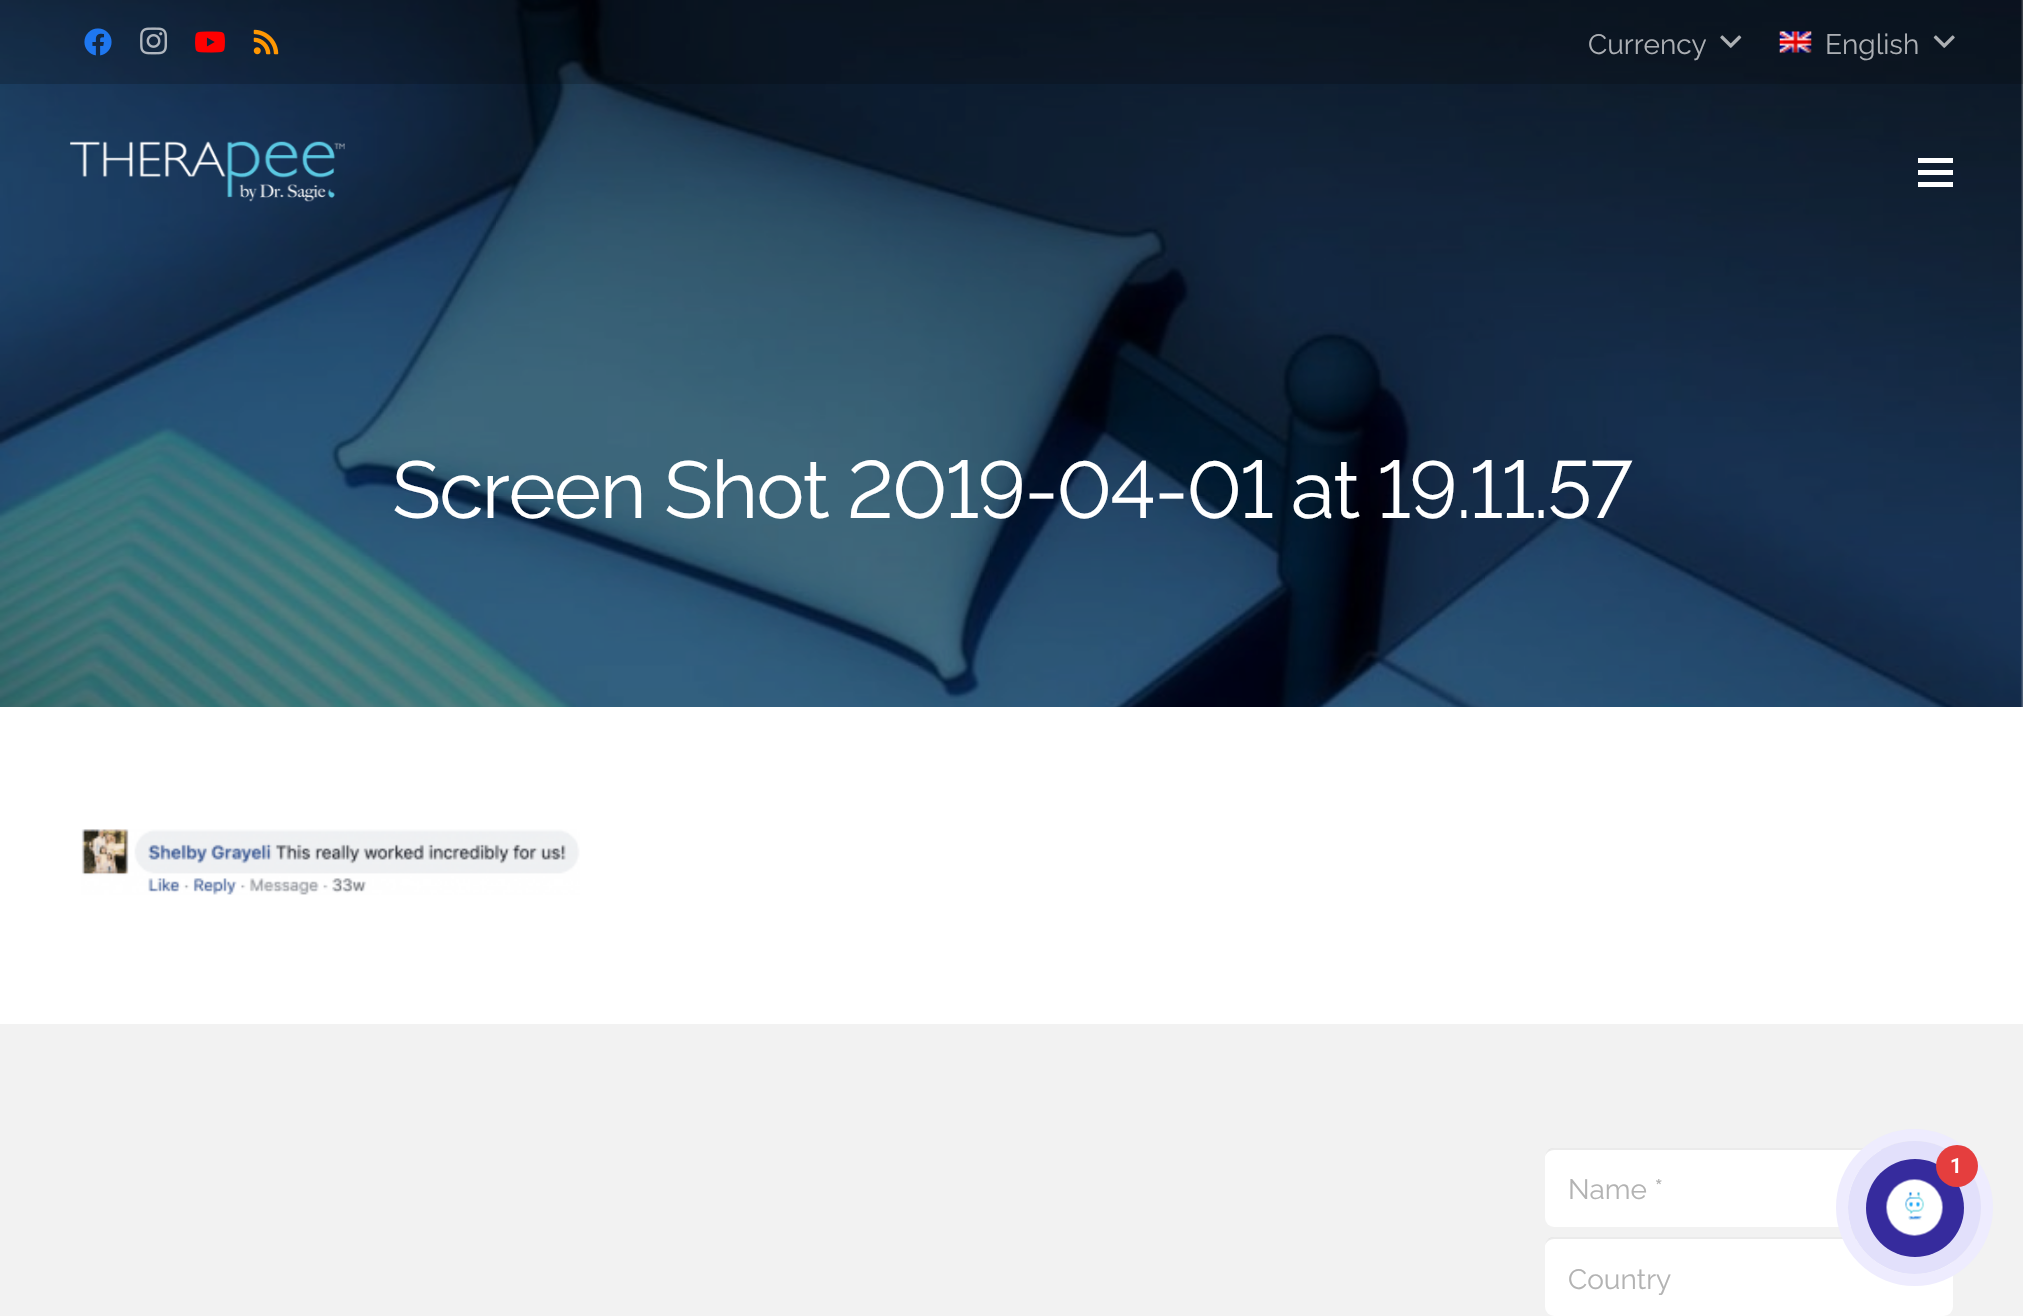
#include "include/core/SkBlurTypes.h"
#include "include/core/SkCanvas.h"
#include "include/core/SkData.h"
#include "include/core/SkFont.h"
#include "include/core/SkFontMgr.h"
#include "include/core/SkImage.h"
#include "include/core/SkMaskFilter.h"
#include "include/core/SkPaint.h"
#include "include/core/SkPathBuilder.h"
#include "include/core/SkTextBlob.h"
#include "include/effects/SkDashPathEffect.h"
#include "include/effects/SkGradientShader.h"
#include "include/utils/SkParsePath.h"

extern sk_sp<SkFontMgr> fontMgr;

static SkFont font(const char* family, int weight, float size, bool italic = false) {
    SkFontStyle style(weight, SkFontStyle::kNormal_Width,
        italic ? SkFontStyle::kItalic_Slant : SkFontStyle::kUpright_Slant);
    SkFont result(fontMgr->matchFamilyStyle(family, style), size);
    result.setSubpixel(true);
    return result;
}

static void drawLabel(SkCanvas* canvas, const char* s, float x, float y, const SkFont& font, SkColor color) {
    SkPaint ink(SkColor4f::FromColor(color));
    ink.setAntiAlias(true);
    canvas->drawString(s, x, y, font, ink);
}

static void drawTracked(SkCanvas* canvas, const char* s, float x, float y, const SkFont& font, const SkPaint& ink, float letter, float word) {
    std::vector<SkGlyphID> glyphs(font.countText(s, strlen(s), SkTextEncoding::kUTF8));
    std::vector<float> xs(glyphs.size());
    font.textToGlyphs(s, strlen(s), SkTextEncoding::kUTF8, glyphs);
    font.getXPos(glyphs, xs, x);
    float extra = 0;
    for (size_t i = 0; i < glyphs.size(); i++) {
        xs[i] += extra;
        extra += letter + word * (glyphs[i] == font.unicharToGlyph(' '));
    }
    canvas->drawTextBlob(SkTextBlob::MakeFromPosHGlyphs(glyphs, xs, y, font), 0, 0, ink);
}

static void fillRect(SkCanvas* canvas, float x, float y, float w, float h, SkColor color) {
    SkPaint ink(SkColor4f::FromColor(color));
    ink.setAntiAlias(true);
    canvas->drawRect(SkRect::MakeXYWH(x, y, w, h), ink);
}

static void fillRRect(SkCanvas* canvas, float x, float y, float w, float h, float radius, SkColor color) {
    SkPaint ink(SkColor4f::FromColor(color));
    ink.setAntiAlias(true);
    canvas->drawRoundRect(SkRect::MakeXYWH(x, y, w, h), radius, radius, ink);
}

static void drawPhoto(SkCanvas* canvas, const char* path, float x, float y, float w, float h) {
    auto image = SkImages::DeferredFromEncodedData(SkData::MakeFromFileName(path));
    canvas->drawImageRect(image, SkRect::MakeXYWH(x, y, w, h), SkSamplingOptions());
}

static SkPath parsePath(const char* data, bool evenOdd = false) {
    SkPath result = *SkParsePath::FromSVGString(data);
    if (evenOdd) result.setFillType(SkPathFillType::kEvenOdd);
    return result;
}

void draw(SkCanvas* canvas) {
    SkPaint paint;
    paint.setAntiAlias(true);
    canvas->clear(0xFFFFFFFF);
    drawPhoto(canvas, "assets/img9.png", 0, 0, 2023, 707);
    fillRect(canvas, 0, 0, 2023, 84, 0x33000000);
    drawPhoto(canvas, "assets/img1.png", 84, 28, 28, 28);
    drawPhoto(canvas, "assets/img2.png", 140, 27, 27, 28);
    drawPhoto(canvas, "assets/img3.png", 195, 31, 30, 22);
    drawPhoto(canvas, "assets/img4.png", 253, 29, 26, 26);
    SkFont font1 = font("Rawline", 400, 28);
    drawLabel(canvas, "Currency", 1588, 54, font1, 0xFFACAFB4);
    drawPhoto(canvas, "assets/img5.png", 1720, 35, 22, 13);
    drawPhoto(canvas, "assets/img6.png", 1779, 31, 33, 22);
    drawLabel(canvas, "English", 1825, 54, font1, 0xFFACAFB4);
    drawPhoto(canvas, "assets/img7.png", 1933, 35, 22, 13);
    drawPhoto(canvas, "assets/img8.png", 70, 141, 275, 61);
    fillRect(canvas, 1918, 170, 35, 5, 0xFFFFFFFF);
    fillRect(canvas, 1918, 158, 35, 5, 0xFFFFFFFF);
    fillRect(canvas, 1918, 182, 35, 5, 0xFFFFFFFF);
    SkFont font2 = font("Rawline", 400, 80.5f);
    paint.setColor(0xFFFFFFFF);
    drawTracked(canvas, "Screen Shot 2019-04-01 at 19.11.57", 392, 518, font2, paint, -1.6f, 0);
    drawPhoto(canvas, "assets/img10.png", 81, 829, 499, 66);
    fillRect(canvas, 0, 1024, 2023, 292, 0xFFF2F2F2);
    fillRRect(canvas, 1545, 1148, 408, 79, 9, 0xFFFFFFFF);
    paint.setColor(0x14000000);
    canvas->drawPath(parsePath("M1554 1150H1945C1949 1150 1953 1154 1953 1158C1953 1153 1950 1148 1944 1148H1554C1548 1148 1545 1153 1545 1158C1545 1154 1549 1150 1554 1150Z"), paint);
    fillRRect(canvas, 1545, 1237, 408, 79, 9, 0xFFFFFFFF);
    canvas->drawPath(parsePath("M1554 1239H1945C1949 1239 1953 1243 1953 1247C1953 1242 1950 1237 1944 1237H1554C1548 1237 1545 1242 1545 1247C1545 1243 1549 1239 1554 1239Z"), paint);
    paint.setStroke(true);
    paint.setStrokeWidth(12);
    paint.setColor(0xFFEEECFE);
    canvas->drawCircle(1914.5f, 1207.5f, 72.5f, paint);
    paint.setStroke(false);
    paint.setColor(0xFFE2E0FB);
    canvas->drawCircle(1914.5f, 1207.5f, 66.5f, paint);
    paint.setColor(0xFF362B9D);
    canvas->drawCircle(1915, 1208, 49, paint);
    drawPhoto(canvas, "assets/img11.png", 1886, 1179, 57, 57);
    paint.setColor(0xFFE53E3E);
    canvas->drawCircle(1957, 1166, 21, paint);
    SkFont font3 = font("Roboto", 600, 21);
    drawLabel(canvas, "1", 1950, 1173, font3, 0xFFFFFFFF);
    drawLabel(canvas, "Name *", 1568, 1199, font1, 0xFFB3B3B3);
    canvas->save();
    canvas->clipRect(SkRect::MakeXYWH(1568, 1257, 362, 38));
    drawLabel(canvas, "Country", 1568, 1289, font1, 0xFFB3B3B3);
    canvas->restore();
}
